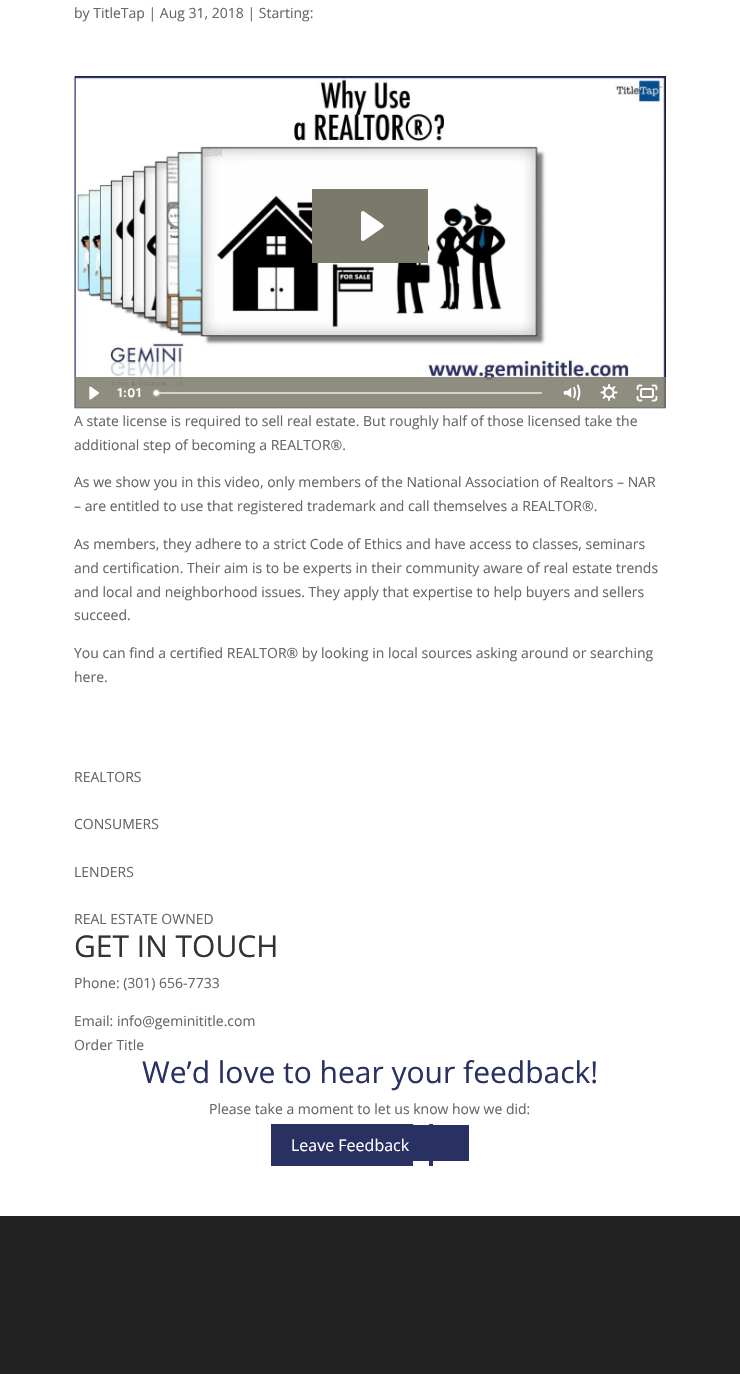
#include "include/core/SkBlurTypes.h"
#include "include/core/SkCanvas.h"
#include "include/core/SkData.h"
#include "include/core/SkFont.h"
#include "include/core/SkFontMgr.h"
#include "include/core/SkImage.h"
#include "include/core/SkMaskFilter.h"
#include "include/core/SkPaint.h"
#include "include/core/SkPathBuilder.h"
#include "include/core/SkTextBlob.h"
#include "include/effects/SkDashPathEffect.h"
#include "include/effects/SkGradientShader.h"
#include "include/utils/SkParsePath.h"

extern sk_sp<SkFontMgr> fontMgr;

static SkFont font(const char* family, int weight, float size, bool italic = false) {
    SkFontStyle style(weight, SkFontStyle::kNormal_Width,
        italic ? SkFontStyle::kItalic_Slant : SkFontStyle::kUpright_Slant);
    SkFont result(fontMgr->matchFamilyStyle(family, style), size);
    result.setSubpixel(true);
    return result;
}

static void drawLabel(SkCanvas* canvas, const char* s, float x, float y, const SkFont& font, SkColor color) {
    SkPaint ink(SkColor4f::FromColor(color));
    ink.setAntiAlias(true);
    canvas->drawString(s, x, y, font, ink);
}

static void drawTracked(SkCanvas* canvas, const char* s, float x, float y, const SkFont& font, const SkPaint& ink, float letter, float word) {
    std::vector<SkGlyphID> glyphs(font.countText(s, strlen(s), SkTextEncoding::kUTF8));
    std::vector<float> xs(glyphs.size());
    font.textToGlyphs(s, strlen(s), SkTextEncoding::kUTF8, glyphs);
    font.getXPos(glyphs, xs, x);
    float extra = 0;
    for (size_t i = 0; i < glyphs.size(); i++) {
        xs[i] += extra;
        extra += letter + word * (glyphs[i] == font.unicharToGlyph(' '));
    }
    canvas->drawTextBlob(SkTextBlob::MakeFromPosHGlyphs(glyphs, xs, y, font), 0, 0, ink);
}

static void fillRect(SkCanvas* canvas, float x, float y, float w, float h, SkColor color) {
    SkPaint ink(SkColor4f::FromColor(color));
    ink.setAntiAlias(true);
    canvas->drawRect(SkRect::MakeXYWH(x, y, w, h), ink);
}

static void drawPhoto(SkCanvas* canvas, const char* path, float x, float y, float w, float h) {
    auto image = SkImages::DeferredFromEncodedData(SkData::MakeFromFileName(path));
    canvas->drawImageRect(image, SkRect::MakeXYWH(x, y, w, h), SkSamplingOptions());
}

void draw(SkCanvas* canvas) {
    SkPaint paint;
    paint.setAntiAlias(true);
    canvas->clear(0xFFFFFFFF);
    SkFont font1 = font("Open Sans", 400, 14);
    drawLabel(canvas, "by TitleTap | Aug 31, 2018 | Starting:", 74, 18, font1, 0xFF666666);
    fillRect(canvas, 75, 76, 591, 332, 0xFF000000);
    drawPhoto(canvas, "assets/img1.png", 74, 76, 592, 333);
    fillRect(canvas, 312, 189, 116, 74, 0xFF7B796A);
    drawPhoto(canvas, "assets/img2.png", 361, 211, 23, 30);
    fillRect(canvas, 75, 377, 591, 31, 0xD97B796A);
    drawPhoto(canvas, "assets/img3.png", 89, 386, 10, 14);
    SkFont font2 = font("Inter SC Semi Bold", 600, 12);
    paint.setColor(0xFFFFFFFF);
    drawTracked(canvas, "1:01", 117, 397, font2, paint, 0.5f, 0);
    drawPhoto(canvas, "assets/img4.png", 151, 388, 391, 10);
    drawPhoto(canvas, "assets/img5.png", 563, 384, 18, 17);
    drawPhoto(canvas, "assets/img6.png", 600, 384, 18, 17);
    drawPhoto(canvas, "assets/img7.png", 636, 384, 22, 18);
    drawLabel(canvas, "A state license is required to sell real estate. But roughly half of those licensed take the", 74, 426, font1, 0xFF666666);
    drawLabel(canvas, "additional step of becoming a REALTOR®.", 74, 450, font1, 0xFF666666);
    drawLabel(canvas, "As we show you in this video, only members of the National Association of Realtors – NAR", 74, 487, font1, 0xFF666666);
    drawLabel(canvas, "– are entitled to use that registered trademark and call themselves a REALTOR®.", 74, 511, font1, 0xFF666666);
    drawLabel(canvas, "As members, they adhere to a strict Code of Ethics and have access to classes, seminars", 74, 549, font1, 0xFF666666);
    drawLabel(canvas, "and certification. Their aim is to be experts in their community aware of real estate trends", 74, 573, font1, 0xFF666666);
    drawLabel(canvas, "and local and neighborhood issues. They apply that expertise to help buyers and sellers", 74, 597, font1, 0xFF666666);
    drawLabel(canvas, "succeed.", 74, 620, font1, 0xFF666666);
    drawLabel(canvas, "You can find a certified REALTOR® by looking in local sources asking around or searching", 74, 658, font1, 0xFF666666);
    drawLabel(canvas, "here.", 74, 682, font1, 0xFF666666);
    drawLabel(canvas, "REALTORS", 74, 782, font1, 0xFF666666);
    drawLabel(canvas, "CONSUMERS", 74, 829, font1, 0xFF666666);
    drawLabel(canvas, "LENDERS", 74, 877, font1, 0xFF666666);
    drawLabel(canvas, "REAL ESTATE OWNED", 74, 924, font1, 0xFF666666);
    SkFont font3 = font("Open Sans", 400, 30);
    drawLabel(canvas, "GET IN TOUCH", 74, 957, font3, 0xFF333333);
    drawLabel(canvas, "Phone: (301) 656-7733", 74, 988, font1, 0xFF666666);
    drawLabel(canvas, "Email: info@geminititle.com", 74, 1026, font1, 0xFF666666);
    drawLabel(canvas, "Order Title", 74, 1050, font1, 0xFF666666);
    drawLabel(canvas, "We’d love to hear your feedback!", 142, 1083, font3, 0xFF293062);
    drawLabel(canvas, "Please take a moment to let us know how we did:", 209, 1114, font1, 0xFF666666);
    fillRect(canvas, 271, 1124, 142, 42, 0xFF293062);
    SkFont font4 = font("Open Sans", 400, 16);
    drawLabel(canvas, "Leave Feedback", 291, 1151, font4, 0xFFFFFFFF);
    fillRect(canvas, 413, 1125, 16, 36, 0xFF293062);
    fillRect(canvas, 429, 1124, 4, 42, 0xFF293062);
    fillRect(canvas, 433, 1125, 36, 36, 0xFF293062);
    fillRect(canvas, 0, 1216, 740, 158, 0xFF222222);
}
